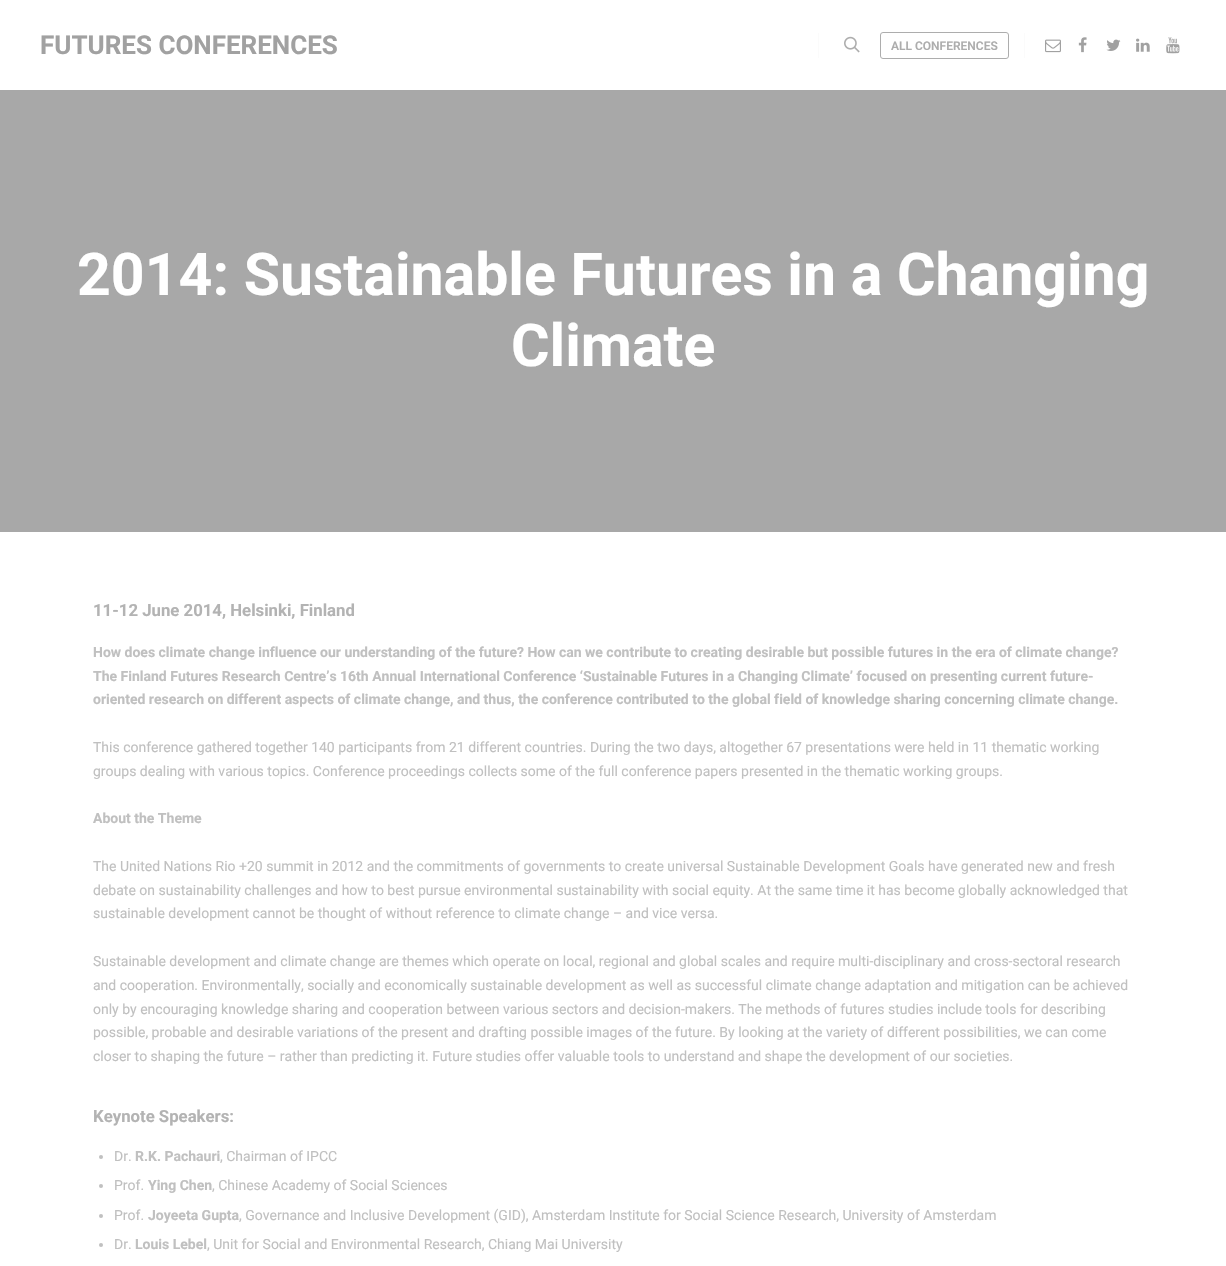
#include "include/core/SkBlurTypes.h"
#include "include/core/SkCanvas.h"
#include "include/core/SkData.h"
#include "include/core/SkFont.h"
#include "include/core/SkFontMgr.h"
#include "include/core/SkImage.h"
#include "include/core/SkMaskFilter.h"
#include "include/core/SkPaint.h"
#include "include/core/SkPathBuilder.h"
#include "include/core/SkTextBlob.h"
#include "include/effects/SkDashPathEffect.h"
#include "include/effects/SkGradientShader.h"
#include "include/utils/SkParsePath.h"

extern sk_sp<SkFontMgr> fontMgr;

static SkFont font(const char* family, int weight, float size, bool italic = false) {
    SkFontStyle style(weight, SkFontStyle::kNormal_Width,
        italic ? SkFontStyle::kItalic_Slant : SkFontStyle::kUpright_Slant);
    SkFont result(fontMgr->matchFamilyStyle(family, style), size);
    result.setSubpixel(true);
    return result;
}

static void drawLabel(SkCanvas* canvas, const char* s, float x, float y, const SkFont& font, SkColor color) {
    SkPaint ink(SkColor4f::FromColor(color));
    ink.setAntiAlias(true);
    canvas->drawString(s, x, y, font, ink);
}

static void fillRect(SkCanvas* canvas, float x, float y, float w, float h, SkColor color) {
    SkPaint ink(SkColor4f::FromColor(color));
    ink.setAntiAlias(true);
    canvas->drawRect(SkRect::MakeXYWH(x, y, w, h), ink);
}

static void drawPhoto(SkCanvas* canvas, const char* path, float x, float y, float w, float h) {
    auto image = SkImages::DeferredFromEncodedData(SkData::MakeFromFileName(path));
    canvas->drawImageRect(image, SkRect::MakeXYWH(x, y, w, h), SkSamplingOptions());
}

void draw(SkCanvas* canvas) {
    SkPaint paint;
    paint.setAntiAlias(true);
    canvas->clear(0xFFFFFFFF);
    SkFont font1 = font("Roboto", 700, 26);
    drawLabel(canvas, "FUTURES CONFERENCES", 40, 54, font1, 0xFFA1A1A1);
    fillRect(canvas, 818, 33, 1, 25, 0xFFFBFBFB);
    drawPhoto(canvas, "assets/img1.png", 844, 36, 16, 17);
    paint.setStroke(true);
    paint.setStrokeWidth(1);
    paint.setColor(0xFFADADAD);
    canvas->drawRoundRect(SkRect::MakeXYWH(880.5f, 32.5f, 128, 26), 2.5f, 2.5f, paint);
    SkFont font2 = font("Roboto", 600, 12);
    drawLabel(canvas, "ALL CONFERENCES", 891, 50, font2, 0xFFADADAD);
    fillRect(canvas, 1024, 33, 1, 25, 0xFFFBFBFB);
    drawPhoto(canvas, "assets/img2.png", 1045, 39, 16, 14);
    drawPhoto(canvas, "assets/img3.png", 1078, 37, 9, 16);
    drawPhoto(canvas, "assets/img4.png", 1106, 39, 15, 12);
    drawPhoto(canvas, "assets/img5.png", 1136, 38, 14, 14);
    drawPhoto(canvas, "assets/img6.png", 1166, 37, 14, 17);
    fillRect(canvas, 0, 90, 1226, 442, 0xFFA8A8A8);
    SkFont font3 = font("Roboto", 700, 59);
    drawLabel(canvas, "2014: Sustainable Futures in a Changing", 77, 295, font3, 0xFFFFFFFF);
    drawLabel(canvas, "Climate", 511, 366, font3, 0xFFFFFFFF);
    SkFont font4 = font("Roboto", 700, 16.75f);
    drawLabel(canvas, "11-12 June 2014, Helsinki, Finland", 93, 616, font4, 0xFFB3B3B3);
    SkFont font5 = font("Roboto", 700, 14);
    drawLabel(canvas, "How does climate change influence our understanding of the future? How can we contribute to creating desirable but possible futures in the era of climate change?", 93, 657, font5, 0xFFC0C0C0);
    drawLabel(canvas, "The Finland Futures Research Centre’s 16th Annual International Conference ‘Sustainable Futures in a Changing Climate’ focused on presenting current future-", 93, 681, font5, 0xFFC0C0C0);
    drawLabel(canvas, "oriented research on different aspects of climate change, and thus, the conference contributed to the global field of knowledge sharing concerning climate change.", 93, 704, font5, 0xFFC0C0C0);
    SkFont font6 = font("Roboto", 400, 14);
    drawLabel(canvas, "This conference gathered together 140 participants from 21 different countries. During the two days, altogether 67 presentations were held in 11 thematic working", 93, 752, font6, 0xFFC0C0C0);
    drawLabel(canvas, "groups dealing with various topics. Conference proceedings collects some of the full conference papers presented in the thematic working groups.", 93, 776, font6, 0xFFC0C0C0);
    drawLabel(canvas, "About the Theme", 93, 823, font5, 0xFFC0C0C0);
    drawLabel(canvas, "The United Nations Rio +20 summit in 2012 and the commitments of governments to create universal Sustainable Development Goals have generated new and fresh", 93, 871, font6, 0xFFC0C0C0);
    drawLabel(canvas, "debate on sustainability challenges and how to best pursue environmental sustainability with social equity. At the same time it has become globally acknowledged that", 93, 895, font6, 0xFFC0C0C0);
    drawLabel(canvas, "sustainable development cannot be thought of without reference to climate change – and vice versa.", 93, 918, font6, 0xFFC0C0C0);
    drawLabel(canvas, "Sustainable development and climate change are themes which operate on local, regional and global scales and require multi-disciplinary and cross-sectoral research", 93, 966, font6, 0xFFC0C0C0);
    drawLabel(canvas, "and cooperation. Environmentally, socially and economically sustainable development as well as successful climate change adaptation and mitigation can be achieved", 93, 990, font6, 0xFFC0C0C0);
    drawLabel(canvas, "only by encouraging knowledge sharing and cooperation between various sectors and decision-makers. The methods of futures studies include tools for describing", 93, 1014, font6, 0xFFC0C0C0);
    drawLabel(canvas, "possible, probable and desirable variations of the present and drafting possible images of the future. By looking at the variety of different possibilities, we can come", 93, 1037, font6, 0xFFC0C0C0);
    drawLabel(canvas, "closer to shaping the future – rather than predicting it. Future studies offer valuable tools to understand and shape the development of our societies.", 93, 1061, font6, 0xFFC0C0C0);
    drawLabel(canvas, "Keynote Speakers:", 93, 1122, font4, 0xFFB3B3B3);
    paint.setStroke(false);
    paint.setColor(0xFFC0C0C0);
    canvas->drawCircle(101, 1157, 2, paint);
    drawLabel(canvas, "Dr.", 114, 1161, font6, 0xFFC0C0C0);
    drawLabel(canvas, "R.K. Pachauri", 135, 1161, font5, 0xFFC0C0C0);
    drawLabel(canvas, ", Chairman of IPCC", 220, 1161, font6, 0xFFC0C0C0);
    canvas->drawCircle(101, 1186, 2, paint);
    drawLabel(canvas, "Prof.", 114, 1190, font6, 0xFFC0C0C0);
    drawLabel(canvas, "Ying Chen", 148, 1190, font5, 0xFFC0C0C0);
    drawLabel(canvas, ", Chinese Academy of Social Sciences", 212, 1190, font6, 0xFFC0C0C0);
    canvas->drawCircle(101, 1216, 2, paint);
    drawLabel(canvas, "Prof.", 114, 1220, font6, 0xFFC0C0C0);
    drawLabel(canvas, "Joyeeta Gupta", 148, 1220, font5, 0xFFC0C0C0);
    drawLabel(canvas, ", Governance and Inclusive Development (GID), Amsterdam Institute for Social Science Research, University of Amsterdam", 239, 1220, font6, 0xFFC0C0C0);
    canvas->drawCircle(101, 1245, 2, paint);
    drawLabel(canvas, "Dr.", 114, 1249, font6, 0xFFC0C0C0);
    drawLabel(canvas, "Louis Lebel", 135, 1249, font5, 0xFFC0C0C0);
    drawLabel(canvas, ", Unit for Social and Environmental Research, Chiang Mai University", 207, 1249, font6, 0xFFC0C0C0);
}
